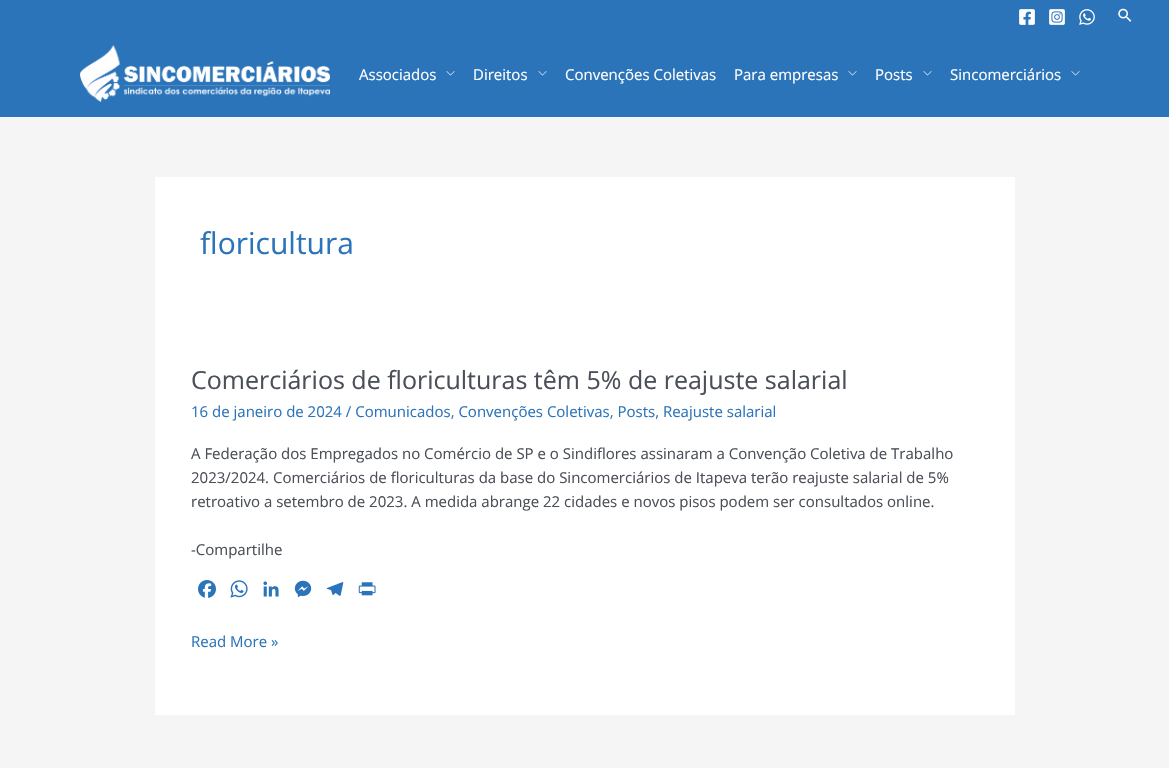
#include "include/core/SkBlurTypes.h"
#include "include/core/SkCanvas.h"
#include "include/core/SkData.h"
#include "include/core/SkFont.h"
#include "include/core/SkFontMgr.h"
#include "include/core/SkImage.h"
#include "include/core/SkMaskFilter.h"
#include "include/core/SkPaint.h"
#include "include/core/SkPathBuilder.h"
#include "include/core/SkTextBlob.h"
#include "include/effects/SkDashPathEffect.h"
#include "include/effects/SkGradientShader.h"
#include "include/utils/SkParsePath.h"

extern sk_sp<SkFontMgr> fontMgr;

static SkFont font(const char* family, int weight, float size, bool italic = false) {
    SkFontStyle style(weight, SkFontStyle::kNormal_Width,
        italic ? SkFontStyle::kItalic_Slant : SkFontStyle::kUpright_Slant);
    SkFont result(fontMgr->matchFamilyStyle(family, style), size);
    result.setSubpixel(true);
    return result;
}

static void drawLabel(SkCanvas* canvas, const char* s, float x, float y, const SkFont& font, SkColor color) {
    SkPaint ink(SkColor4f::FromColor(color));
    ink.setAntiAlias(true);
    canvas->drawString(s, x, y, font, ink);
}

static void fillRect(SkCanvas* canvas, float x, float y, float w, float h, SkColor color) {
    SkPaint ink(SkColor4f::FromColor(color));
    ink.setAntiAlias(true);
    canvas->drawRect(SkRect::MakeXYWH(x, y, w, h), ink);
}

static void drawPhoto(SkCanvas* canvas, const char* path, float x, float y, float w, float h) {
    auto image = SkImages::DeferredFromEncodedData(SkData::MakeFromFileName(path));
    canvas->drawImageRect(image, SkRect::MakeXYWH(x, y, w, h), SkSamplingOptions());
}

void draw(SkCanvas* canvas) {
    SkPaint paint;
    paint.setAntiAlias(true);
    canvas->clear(0xFFF5F5F5);
    fillRect(canvas, 0, 0, 1169, 117, 0xFF2B74B9);
    drawPhoto(canvas, "assets/img1.png", 1019, 9, 16, 16);
    drawPhoto(canvas, "assets/img2.png", 1049, 9, 16, 16);
    drawPhoto(canvas, "assets/img3.png", 1079, 9, 16, 16);
    drawPhoto(canvas, "assets/img4.png", 1118, 8, 14, 14);
    drawPhoto(canvas, "assets/img5.png", 80, 45, 250, 57);
    SkFont font1 = font("Open Sans", 400, 15);
    drawLabel(canvas, "Associados", 359, 80, font1, 0xFFFFFFFF);
    drawPhoto(canvas, "assets/img6.png", 446, 71, 9, 5);
    drawLabel(canvas, "Direitos", 473, 80, font1, 0xFFFFFFFF);
    drawPhoto(canvas, "assets/img6.png", 538, 71, 9, 5);
    drawLabel(canvas, "Convenções Coletivas", 565, 80, font1, 0xFFFFFFFF);
    drawLabel(canvas, "Para empresas", 734, 80, font1, 0xFFFFFFFF);
    drawPhoto(canvas, "assets/img6.png", 848, 71, 9, 5);
    drawLabel(canvas, "Posts", 875, 80, font1, 0xFFFFFFFF);
    drawPhoto(canvas, "assets/img6.png", 923, 71, 9, 5);
    drawLabel(canvas, "Sincomerciários", 950, 80, font1, 0xFFFFFFFF);
    drawPhoto(canvas, "assets/img6.png", 1071, 71, 9, 5);
    fillRect(canvas, 155, 177, 860, 538, 0xFFFFFFFF);
    SkFont font2 = font("Open Sans", 400, 30);
    drawLabel(canvas, "floricultura", 200, 254, font2, 0xFF2B74B9);
    SkFont font3 = font("Open Sans", 400, 25);
    drawLabel(canvas, "Comerciários de floriculturas têm 5% de reajuste salarial", 191, 389, font3, 0xFF4B4F58);
    drawLabel(canvas, "16 de janeiro de 2024 / Comunicados, Convenções Coletivas, Posts, Reajuste salarial", 191, 417, font1, 0xFF2B74B9);
    drawLabel(canvas, "A Federação dos Empregados no Comércio de SP e o Sindiflores assinaram a Convenção Coletiva de Trabalho", 191, 459, font1, 0xFF4B4F58);
    drawLabel(canvas, "2023/2024. Comerciários de floriculturas da base do Sincomerciários de Itapeva terão reajuste salarial de 5%", 191, 483, font1, 0xFF4B4F58);
    drawLabel(canvas, "retroativo a setembro de 2023. A medida abrange 22 cidades e novos pisos podem ser consultados online.", 191, 507, font1, 0xFF4B4F58);
    drawLabel(canvas, "-Compartilhe", 191, 555, font1, 0xFF4B4F58);
    drawPhoto(canvas, "assets/img7.png", 198, 580, 18, 18);
    drawPhoto(canvas, "assets/img8.png", 230, 580, 18, 18);
    drawPhoto(canvas, "assets/img9.png", 263, 581, 16, 16);
    drawPhoto(canvas, "assets/img10.png", 294, 580, 18, 18);
    drawPhoto(canvas, "assets/img11.png", 326, 582, 18, 14);
    drawPhoto(canvas, "assets/img12.png", 358, 582, 18, 14);
    drawLabel(canvas, "Read More »", 191, 647, font1, 0xFF2B74B9);
}
